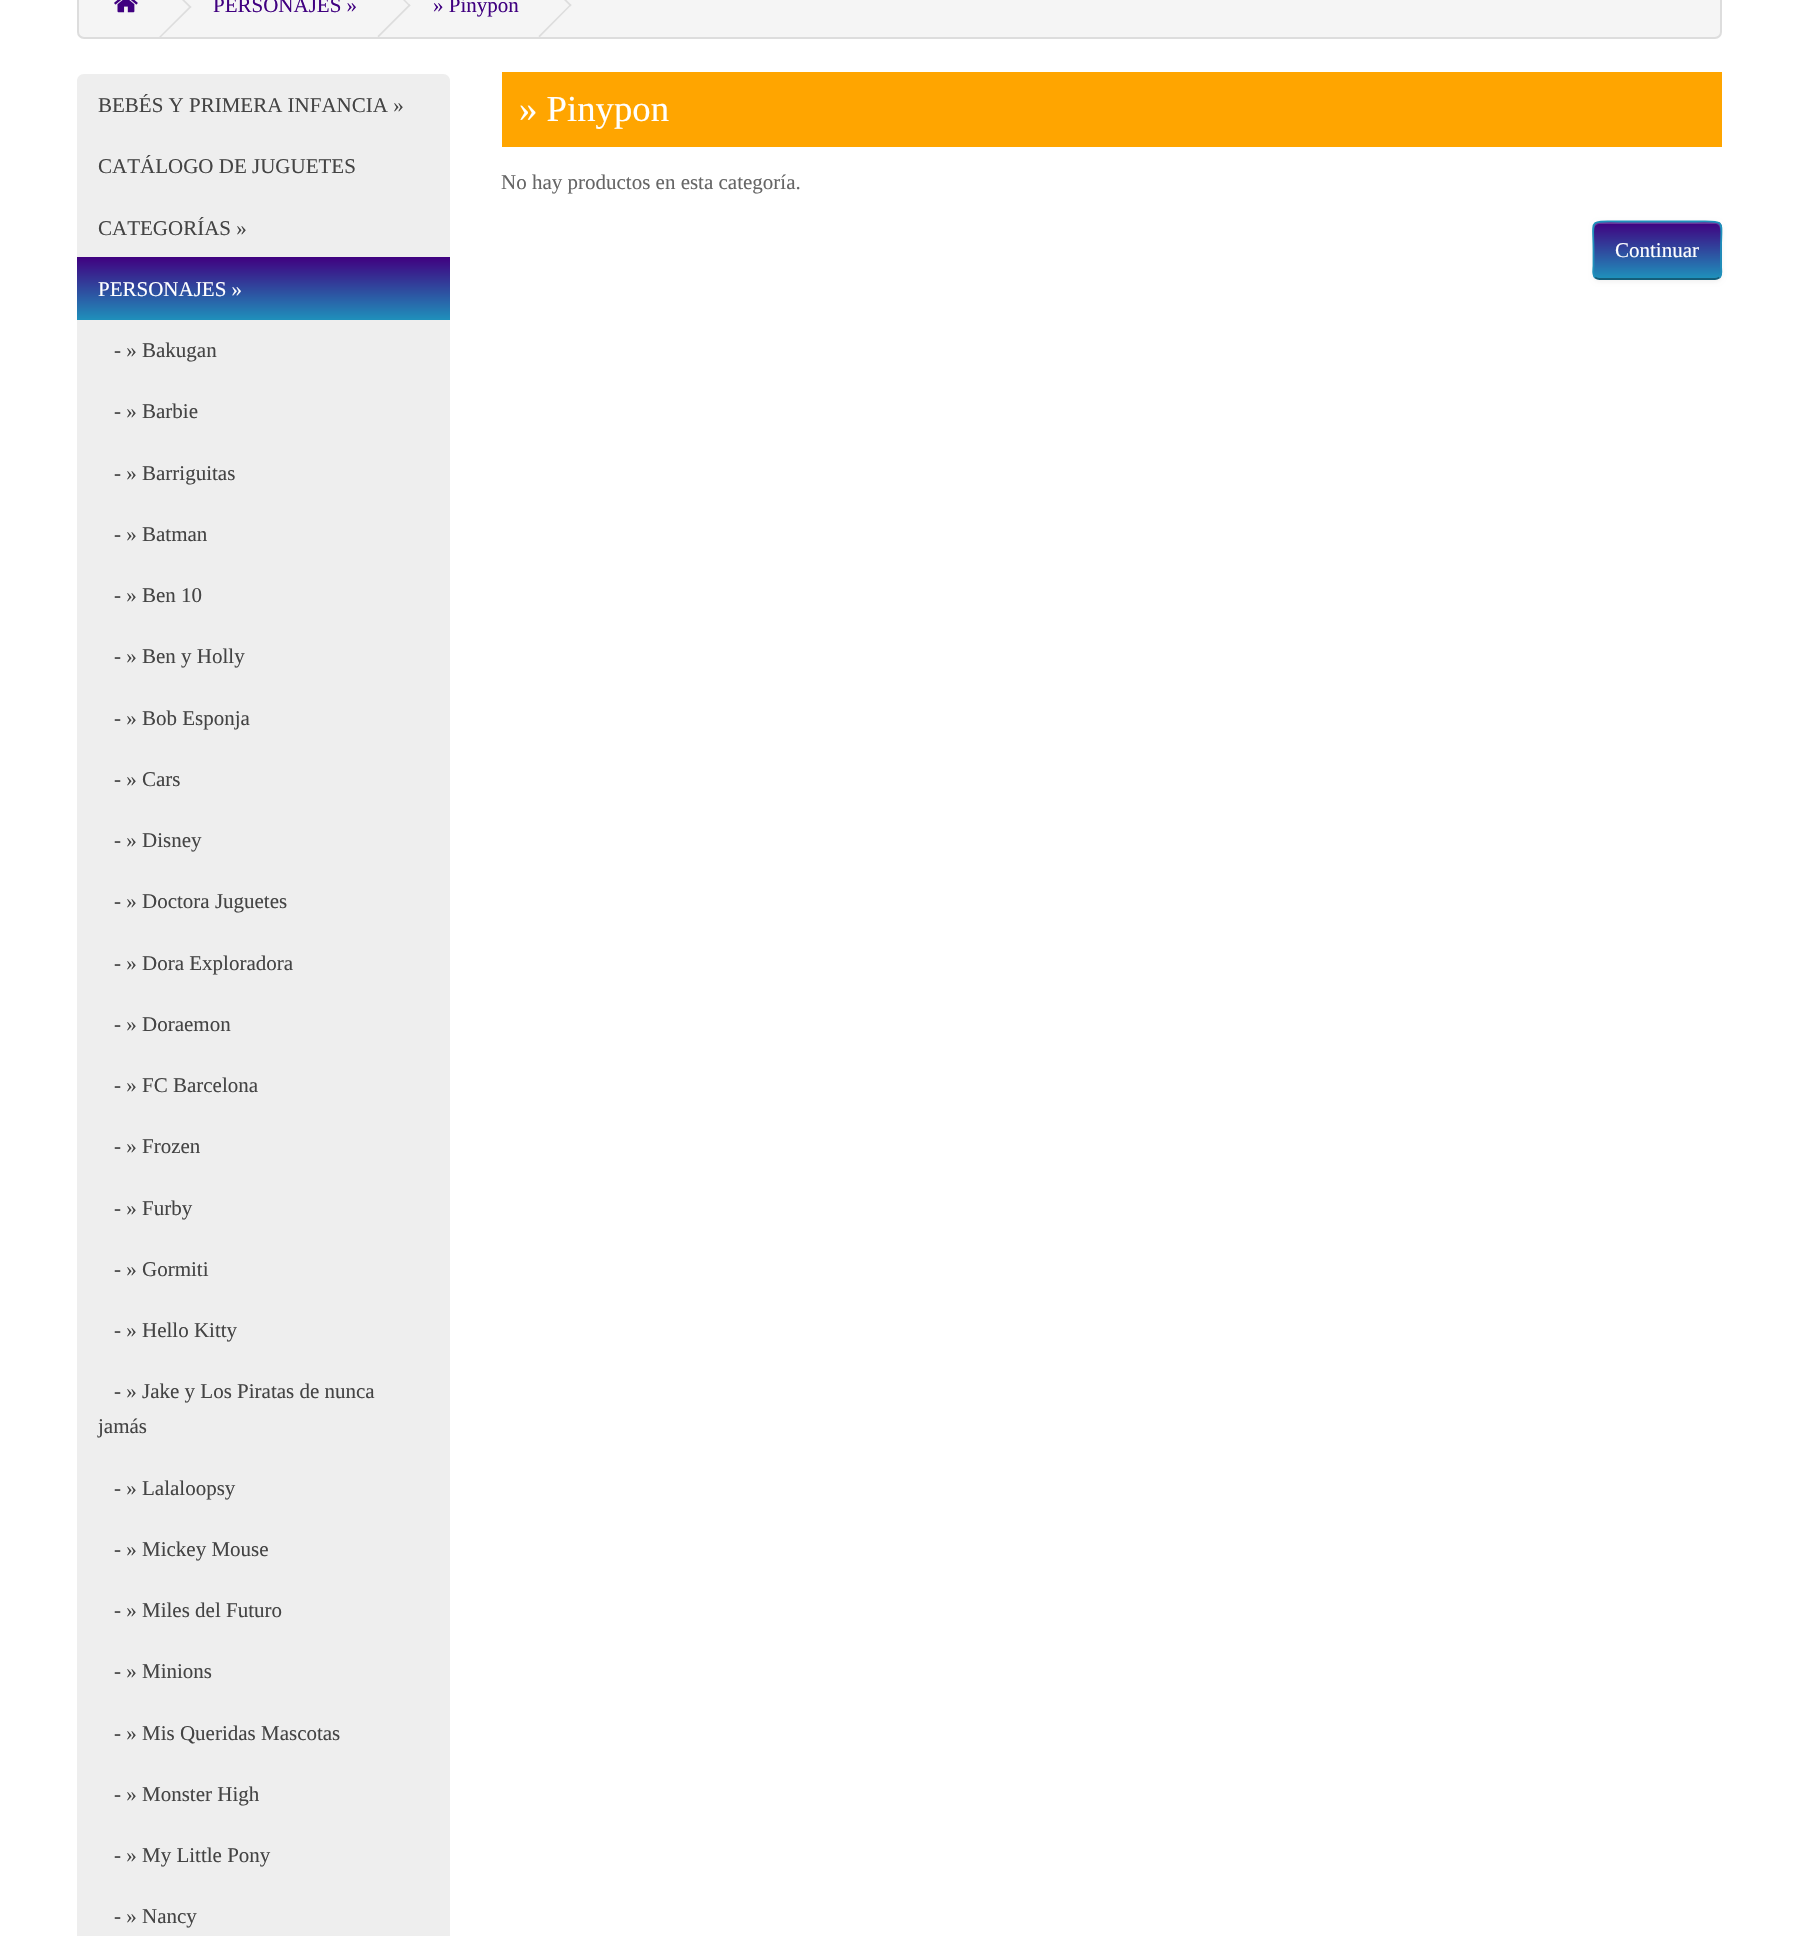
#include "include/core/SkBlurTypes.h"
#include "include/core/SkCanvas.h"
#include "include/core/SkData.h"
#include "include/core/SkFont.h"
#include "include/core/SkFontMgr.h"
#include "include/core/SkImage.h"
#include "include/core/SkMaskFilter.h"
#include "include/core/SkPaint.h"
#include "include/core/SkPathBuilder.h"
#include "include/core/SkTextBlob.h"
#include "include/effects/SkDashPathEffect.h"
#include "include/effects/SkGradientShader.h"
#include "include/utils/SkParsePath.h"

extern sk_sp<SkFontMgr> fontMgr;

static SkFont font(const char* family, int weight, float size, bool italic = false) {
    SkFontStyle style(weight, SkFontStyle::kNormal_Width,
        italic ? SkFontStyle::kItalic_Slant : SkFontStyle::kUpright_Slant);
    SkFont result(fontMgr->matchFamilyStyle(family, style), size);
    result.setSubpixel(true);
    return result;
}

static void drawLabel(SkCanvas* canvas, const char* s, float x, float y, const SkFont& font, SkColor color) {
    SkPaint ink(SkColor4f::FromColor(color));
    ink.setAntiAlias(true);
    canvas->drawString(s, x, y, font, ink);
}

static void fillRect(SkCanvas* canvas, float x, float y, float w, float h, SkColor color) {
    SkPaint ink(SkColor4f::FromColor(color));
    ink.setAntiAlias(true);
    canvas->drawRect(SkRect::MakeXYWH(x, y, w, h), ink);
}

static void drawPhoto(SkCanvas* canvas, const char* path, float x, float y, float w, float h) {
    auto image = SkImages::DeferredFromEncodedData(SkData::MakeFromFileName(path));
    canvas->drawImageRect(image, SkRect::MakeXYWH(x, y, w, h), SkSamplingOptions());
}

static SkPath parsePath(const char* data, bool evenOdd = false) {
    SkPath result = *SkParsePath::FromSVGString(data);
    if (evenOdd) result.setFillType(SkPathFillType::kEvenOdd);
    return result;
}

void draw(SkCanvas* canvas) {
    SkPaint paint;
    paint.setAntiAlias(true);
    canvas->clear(0xFFFFFFFF);
    paint.setColor(0xFFF5F5F5);
    canvas->drawRoundRect(SkRect::MakeXYWH(78, -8, 1643, 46), 6, 6, paint);
    paint.setStroke(true);
    paint.setStrokeWidth(2);
    paint.setColor(0xFFDDDDDD);
    canvas->drawRoundRect(SkRect::MakeXYWH(78, -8, 1643, 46), 6, 6, paint);
    drawPhoto(canvas, "assets/img1.png", 114, 0, 24, 13);
    paint.setStroke(false);
    canvas->drawPath(parsePath("M158-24L159-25L191.5 7L190 8Z"), paint);
    canvas->drawPath(parsePath("M158 38L190 6L191.5 7L159 39Z"), paint);
    SkFont font1 = font("Liberation Serif", 400, 21);
    drawLabel(canvas, "PERSONAJES »", 213, 12, font1, 0xFF400080);
    canvas->drawPath(parsePath("M377.5-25.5L378.5-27L410.5 5.5L409.5 6.5Z"), paint);
    canvas->drawPath(parsePath("M377.5 36L409.5 4L410.5 5.5L378.5 37.5Z"), paint);
    drawLabel(canvas, "» Pinypon", 433, 12, font1, 0xFF400080);
    canvas->drawPath(parsePath("M538.5-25.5L539.5-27L571.5 5L570.5 6.5Z"), paint);
    canvas->drawPath(parsePath("M538.5 36L570.5 4L571.5 5L539.5 37.5Z"), paint);
    paint.setColor(0xFFEEEEEE);
    canvas->drawPath(parsePath("M84 74H443C447 74 450 77 450 81V137H77V81C77 77 80 74 84 74Z"), paint);
    drawLabel(canvas, "BEBÉS Y PRIMERA INFANCIA »", 98, 112, font1, 0xFF444444);
    fillRect(canvas, 77, 137, 373, 120, 0xFFEEEEEE);
    drawLabel(canvas, "CATÁLOGO DE JUGUETES", 98, 173, font1, 0xFF444444);
    drawLabel(canvas, "CATEGORÍAS »", 98, 235, font1, 0xFF444444);
    {
        const SkColor colors[] = {0xFF400080, 0xFF1F90BB};
        const float stops[] = {0, 1};
        const SkPoint ends[] = {{263, 257}, {263, 320}};
        paint.setShader(SkGradientShader::MakeLinear(ends, colors, stops, 2, SkTileMode::kClamp));
        paint.setAlpha(255);
    }
    canvas->drawRect(SkRect::MakeXYWH(77, 257, 373, 63), paint);
    drawLabel(canvas, "PERSONAJES »", 98, 296, font1, 0xFFFFFFFF);
    fillRect(canvas, 77, 320, 373, 1616, 0xFFEEEEEE);
    drawLabel(canvas, "- » Bakugan", 114, 357, font1, 0xFF444444);
    drawLabel(canvas, "- » Barbie", 114, 418, font1, 0xFF444444);
    drawLabel(canvas, "- » Barriguitas", 114, 480, font1, 0xFF444444);
    drawLabel(canvas, "- » Batman", 114, 541, font1, 0xFF444444);
    drawLabel(canvas, "- » Ben 10", 114, 602, font1, 0xFF444444);
    drawLabel(canvas, "- » Ben y Holly", 114, 663, font1, 0xFF444444);
    drawLabel(canvas, "- » Bob Esponja", 114, 725, font1, 0xFF444444);
    drawLabel(canvas, "- » Cars", 114, 786, font1, 0xFF444444);
    drawLabel(canvas, "- » Disney", 114, 847, font1, 0xFF444444);
    drawLabel(canvas, "- » Doctora Juguetes", 114, 908, font1, 0xFF444444);
    drawLabel(canvas, "- » Dora Exploradora", 114, 970, font1, 0xFF444444);
    drawLabel(canvas, "- » Doraemon", 114, 1031, font1, 0xFF444444);
    drawLabel(canvas, "- » FC Barcelona", 114, 1092, font1, 0xFF444444);
    drawLabel(canvas, "- » Frozen", 114, 1153, font1, 0xFF444444);
    drawLabel(canvas, "- » Furby", 114, 1215, font1, 0xFF444444);
    drawLabel(canvas, "- » Gormiti", 114, 1276, font1, 0xFF444444);
    drawLabel(canvas, "- » Hello Kitty", 114, 1337, font1, 0xFF444444);
    drawLabel(canvas, "- » Jake y Los Piratas de nunca", 114, 1398, font1, 0xFF444444);
    drawLabel(canvas, "jamás", 98, 1433, font1, 0xFF444444);
    drawLabel(canvas, "- » Lalaloopsy", 114, 1495, font1, 0xFF444444);
    drawLabel(canvas, "- » Mickey Mouse", 114, 1556, font1, 0xFF444444);
    drawLabel(canvas, "- » Miles del Futuro", 114, 1617, font1, 0xFF444444);
    drawLabel(canvas, "- » Minions", 114, 1678, font1, 0xFF444444);
    drawLabel(canvas, "- » Mis Queridas Mascotas", 114, 1740, font1, 0xFF444444);
    drawLabel(canvas, "- » Monster High", 114, 1801, font1, 0xFF444444);
    drawLabel(canvas, "- » My Little Pony", 114, 1862, font1, 0xFF444444);
    drawLabel(canvas, "- » Nancy", 114, 1923, font1, 0xFF444444);
    fillRect(canvas, 502, 72, 1220, 75, 0xFFFFA500);
    SkFont font2 = font("Liberation Serif", 400, 36.75f);
    drawLabel(canvas, "» Pinypon", 519, 121, font2, 0xFFFFFFFF);
    drawLabel(canvas, "No hay productos en esta categoría.", 501, 189, font1, 0xFF666666);
    paint.setShader(nullptr);
    paint.setColor(0x0D000000);
    paint.setMaskFilter(SkMaskFilter::MakeBlur(kNormal_SkBlurStyle, 2));
    canvas->drawRoundRect(SkRect::MakeXYWH(1593, 222, 129, 60), 7, 7, paint);
    paint.setMaskFilter(nullptr);
    canvas->save();
    canvas->clipPath(parsePath("M1600 221H1715C1719 221 1722 224 1722 228V273C1722 277 1719 280 1715 280H1600C1596 280 1593 277 1593 273V228C1593 224 1596 221 1600 221Z"), true);
    {
        const SkColor colors[] = {0xFF400080, 0xFF1F90BB};
        const float stops[] = {0, 1};
        const SkPoint ends[] = {{1657, 222}, {1657, 278}};
        paint.setShader(SkGradientShader::MakeLinear(ends, colors, stops, 2, SkTileMode::kClamp));
        paint.setAlpha(255);
    }
    canvas->drawRect(SkRect::MakeXYWH(1593, 222, 129, 56), paint);
    canvas->restore();
    paint.setShader(nullptr);
    paint.setColor(0x33FFFFFF);
    canvas->drawPath(parsePath("M1600 224H1715C1718 224 1720 226 1720 229V227C1720 224 1718 222 1715 222H1599C1596 222 1594 224 1594 227V229C1594 226 1597 224 1600 224Z"), paint);
    paint.setStroke(true);
    paint.setStrokeWidth(1.8f);
    paint.setColor(0xFF145E7A);
    canvas->drawPath(parsePath("M1719.5 277.5C1718 278.5 1716.5 279 1715 279H1599.5C1598 279 1596.5 278.5 1595 277.5"), paint);
    paint.setColor(0xFF1F90BB);
    canvas->drawPath(parsePath("M1595 277.5C1592 274.5 1593.5 269 1593.5 265.5V250C1593.5 218.5 1587.5 221.5 1619 221.5H1696C1727 221.5 1721 218.5 1721 250V265.5C1721 269 1722.5 274.5 1719.5 277.5"), paint);
    drawLabel(canvas, "Continuar", 1615, 257, font1, 0xFFFFFFFF);
}
